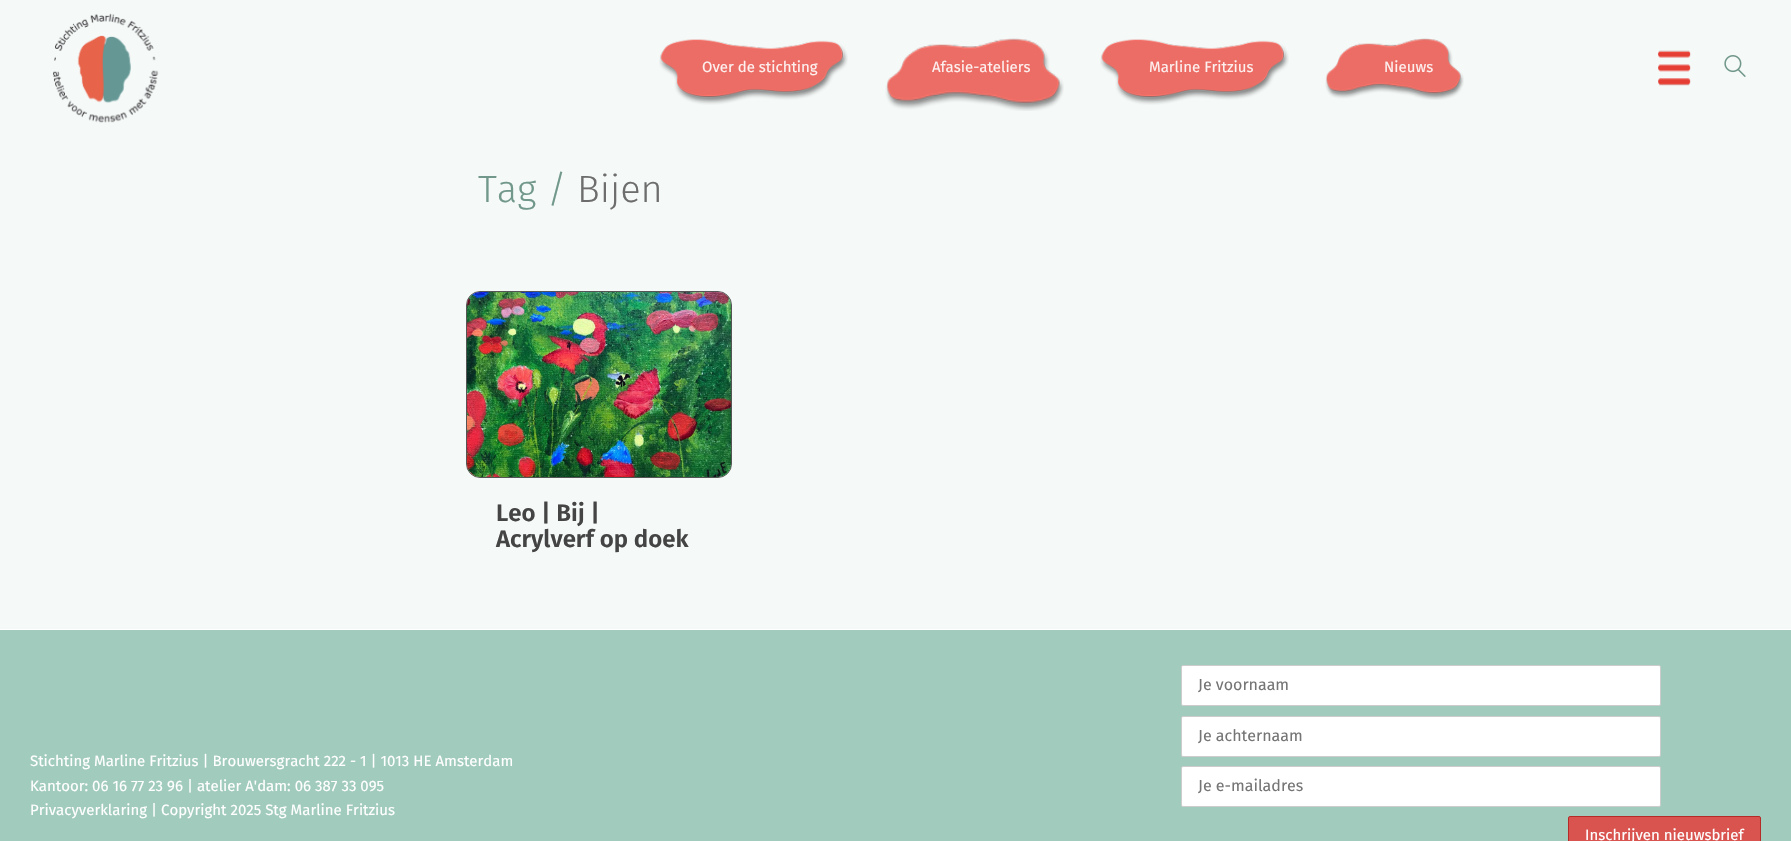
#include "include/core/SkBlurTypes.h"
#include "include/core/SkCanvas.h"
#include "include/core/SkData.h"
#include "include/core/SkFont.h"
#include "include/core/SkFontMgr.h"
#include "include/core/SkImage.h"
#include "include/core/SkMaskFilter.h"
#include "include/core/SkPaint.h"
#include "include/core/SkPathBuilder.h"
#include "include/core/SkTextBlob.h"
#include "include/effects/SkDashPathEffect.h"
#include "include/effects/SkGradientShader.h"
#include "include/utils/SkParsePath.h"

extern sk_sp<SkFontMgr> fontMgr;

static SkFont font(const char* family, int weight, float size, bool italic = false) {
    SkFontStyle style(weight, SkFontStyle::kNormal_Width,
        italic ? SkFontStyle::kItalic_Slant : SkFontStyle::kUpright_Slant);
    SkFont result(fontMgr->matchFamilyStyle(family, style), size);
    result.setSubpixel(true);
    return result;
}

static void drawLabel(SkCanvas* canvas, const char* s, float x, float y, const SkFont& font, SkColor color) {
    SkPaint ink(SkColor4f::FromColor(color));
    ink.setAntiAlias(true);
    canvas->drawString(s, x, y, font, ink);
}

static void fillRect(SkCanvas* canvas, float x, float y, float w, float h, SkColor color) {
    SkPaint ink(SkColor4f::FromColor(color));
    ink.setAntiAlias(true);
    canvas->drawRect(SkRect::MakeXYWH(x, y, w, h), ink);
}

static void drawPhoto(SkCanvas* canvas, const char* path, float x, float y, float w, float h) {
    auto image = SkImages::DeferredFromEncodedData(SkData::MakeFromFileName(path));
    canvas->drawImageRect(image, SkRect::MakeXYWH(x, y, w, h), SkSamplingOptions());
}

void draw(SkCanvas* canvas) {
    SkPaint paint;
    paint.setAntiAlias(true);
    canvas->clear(0xFFA1CBBD);
    fillRect(canvas, 0, 0, 1791, 629, 0xFFF5F9F8);
    drawPhoto(canvas, "assets/img1.png", 53, 13, 106, 110);
    drawPhoto(canvas, "assets/img2.png", 659, 39, 189, 66);
    SkFont font1 = font("Fira Sans", 400, 15);
    drawLabel(canvas, "Over de stichting", 702, 72, font1, 0xFFFDF0EF);
    drawPhoto(canvas, "assets/img3.png", 885, 38, 179, 73);
    drawLabel(canvas, "Afasie-ateliers", 932, 72, font1, 0xFFFDF0EF);
    drawPhoto(canvas, "assets/img2.png", 1100, 39, 189, 66);
    drawLabel(canvas, "Marline Fritzius", 1149, 72, font1, 0xFFFDF0EF);
    drawPhoto(canvas, "assets/img4.png", 1325, 38, 139, 62);
    drawLabel(canvas, "Nieuws", 1384, 72, font1, 0xFFFDF0EF);
    drawPhoto(canvas, "assets/img5.png", 1658, 50, 33, 36);
    drawPhoto(canvas, "assets/img6.png", 1724, 55, 22, 22);
    SkFont font2 = font("Fira Sans", 300, 38);
    drawLabel(canvas, "Tag /", 478, 202, font2, 0xFF71988B);
    drawLabel(canvas, "Bijen", 577, 202, font2, 0xFF6D6D6D);
    paint.setStroke(true);
    paint.setStrokeWidth(1);
    paint.setColor(0xFF555555);
    canvas->drawRoundRect(SkRect::MakeXYWH(466.5f, 291.5f, 265, 186), 13.5f, 13.5f, paint);
    drawPhoto(canvas, "assets/img7.png", 467, 292, 264, 185);
    SkFont font3 = font("Fira Sans", 600, 24);
    drawLabel(canvas, "Leo | Bij |", 496, 521, font3, 0xFF444444);
    drawLabel(canvas, "Acrylverf op doek", 496, 547, font3, 0xFF444444);
    fillRect(canvas, 0, 629, 1791, 1, 0xFFFFFFFF);
    drawLabel(canvas, "Stichting Marline Fritzius | Brouwersgracht 222 - 1 | 1013 HE Amsterdam", 30, 766, font1, 0xFFFFFFFF);
    drawLabel(canvas, "Kantoor: 06 16 77 23 96 | atelier A'dam: 06 387 33 095", 30, 791, font1, 0xFFFFFFFF);
    drawLabel(canvas, "Privacyverklaring", 30, 815, font1, 0xFFFFFFFF);
    drawLabel(canvas, "| Copyright 2025 Stg Marline Fritzius", 151, 815, font1, 0xFFFFFFFF);
    paint.setStroke(false);
    paint.setColor(0xFFFFFFFF);
    canvas->drawRoundRect(SkRect::MakeXYWH(1181.5f, 665.5f, 479, 40), 1.5f, 1.5f, paint);
    paint.setStroke(true);
    paint.setColor(0xFFCCCCCC);
    canvas->drawRoundRect(SkRect::MakeXYWH(1181.5f, 665.5f, 479, 40), 1.5f, 1.5f, paint);
    SkFont font4 = font("Fira Sans", 400, 16);
    drawLabel(canvas, "Je voornaam", 1198, 690, font4, 0xFF757575);
    paint.setStroke(false);
    paint.setColor(0xFFFFFFFF);
    canvas->drawRoundRect(SkRect::MakeXYWH(1181.5f, 716.5f, 479, 40), 1.5f, 1.5f, paint);
    paint.setStroke(true);
    paint.setColor(0xFFCCCCCC);
    canvas->drawRoundRect(SkRect::MakeXYWH(1181.5f, 716.5f, 479, 40), 1.5f, 1.5f, paint);
    drawLabel(canvas, "Je achternaam", 1198, 741, font4, 0xFF757575);
    paint.setStroke(false);
    paint.setColor(0xFFFFFFFF);
    canvas->drawRoundRect(SkRect::MakeXYWH(1181.5f, 766.5f, 479, 40), 1.5f, 1.5f, paint);
    paint.setStroke(true);
    paint.setColor(0xFFCCCCCC);
    canvas->drawRoundRect(SkRect::MakeXYWH(1181.5f, 766.5f, 479, 40), 1.5f, 1.5f, paint);
    drawLabel(canvas, "Je e-mailadres", 1198, 791, font4, 0xFF757575);
    paint.setStroke(false);
    paint.setColor(0xFFD9534F);
    canvas->drawRoundRect(SkRect::MakeXYWH(1568.5f, 816.5f, 192, 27), 1.5f, 1.5f, paint);
    paint.setStroke(true);
    paint.setColor(0xFFB52B27);
    canvas->drawRoundRect(SkRect::MakeXYWH(1568.5f, 816.5f, 192, 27), 1.5f, 1.5f, paint);
    drawLabel(canvas, "Inschrijven nieuwsbrief", 1585, 840, font1, 0xFFFFFFFF);
}
